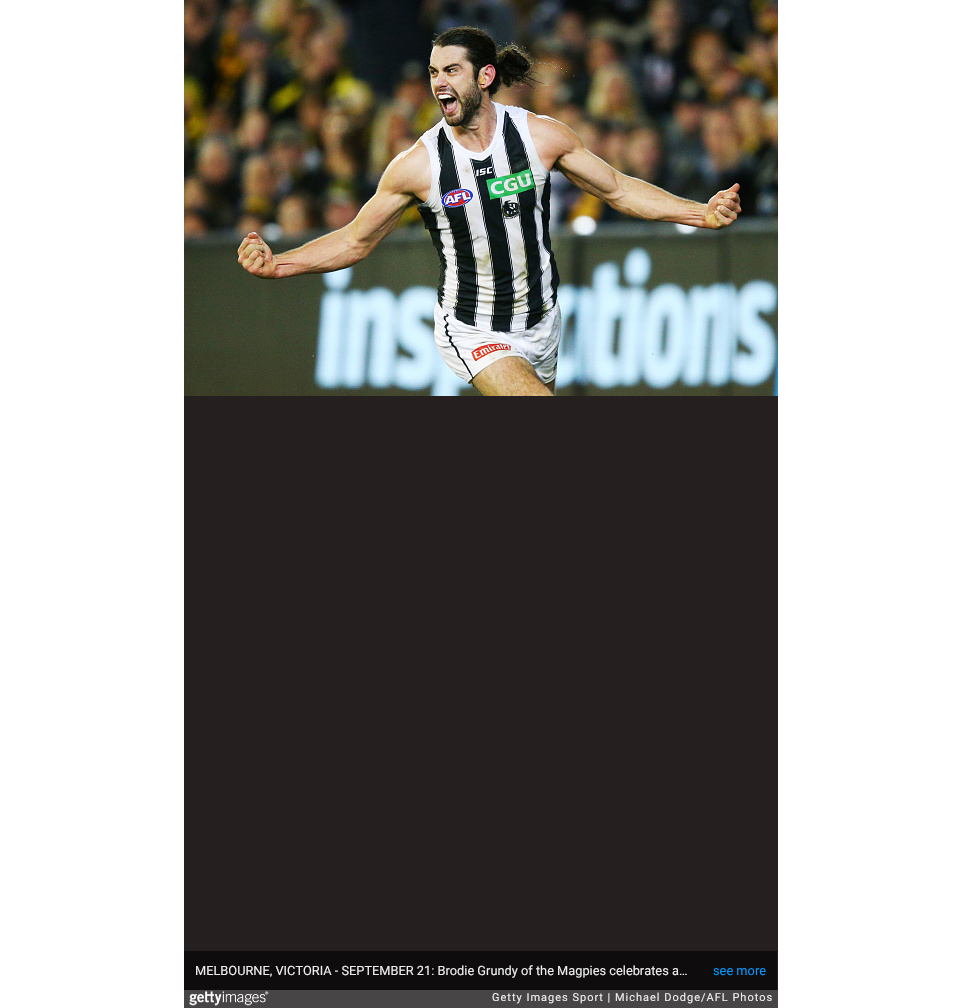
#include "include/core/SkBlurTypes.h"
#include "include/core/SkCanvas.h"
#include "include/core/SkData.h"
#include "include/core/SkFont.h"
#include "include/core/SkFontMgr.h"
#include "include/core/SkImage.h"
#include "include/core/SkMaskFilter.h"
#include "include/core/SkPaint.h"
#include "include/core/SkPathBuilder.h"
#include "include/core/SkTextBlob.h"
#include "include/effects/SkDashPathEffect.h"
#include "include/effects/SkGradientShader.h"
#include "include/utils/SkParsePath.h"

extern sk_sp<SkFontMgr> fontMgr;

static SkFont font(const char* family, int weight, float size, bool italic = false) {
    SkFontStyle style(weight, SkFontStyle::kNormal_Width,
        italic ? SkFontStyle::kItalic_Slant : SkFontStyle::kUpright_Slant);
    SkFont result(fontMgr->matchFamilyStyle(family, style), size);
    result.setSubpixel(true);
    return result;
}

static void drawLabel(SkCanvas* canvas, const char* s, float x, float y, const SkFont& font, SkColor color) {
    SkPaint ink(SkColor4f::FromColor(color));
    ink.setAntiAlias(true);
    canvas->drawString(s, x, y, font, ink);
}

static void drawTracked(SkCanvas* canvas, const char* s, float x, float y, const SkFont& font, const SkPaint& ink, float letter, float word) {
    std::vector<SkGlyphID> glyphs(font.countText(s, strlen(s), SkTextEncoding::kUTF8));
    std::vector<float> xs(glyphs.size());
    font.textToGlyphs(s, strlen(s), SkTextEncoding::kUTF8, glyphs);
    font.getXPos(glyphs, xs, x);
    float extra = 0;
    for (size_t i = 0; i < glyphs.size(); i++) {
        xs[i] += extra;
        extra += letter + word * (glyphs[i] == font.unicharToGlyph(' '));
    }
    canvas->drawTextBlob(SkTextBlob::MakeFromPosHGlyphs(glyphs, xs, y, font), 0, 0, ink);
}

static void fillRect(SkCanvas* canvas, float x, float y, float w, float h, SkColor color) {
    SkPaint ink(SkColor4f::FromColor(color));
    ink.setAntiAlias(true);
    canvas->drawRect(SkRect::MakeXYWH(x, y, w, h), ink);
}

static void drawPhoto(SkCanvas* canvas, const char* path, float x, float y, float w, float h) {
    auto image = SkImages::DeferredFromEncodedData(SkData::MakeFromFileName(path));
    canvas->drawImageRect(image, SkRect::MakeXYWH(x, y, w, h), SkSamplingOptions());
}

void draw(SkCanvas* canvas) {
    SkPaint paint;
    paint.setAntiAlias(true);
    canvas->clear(0xFFFFFFFF);
    fillRect(canvas, 184, 396, 594, 594, 0xFF251F20);
    drawPhoto(canvas, "assets/img1.png", 184, 0, 594, 396);
    fillRect(canvas, 184, 951, 593, 39, 0xFF0F0C0D);
    SkFont font1 = font("Roboto", 400, 12.8f);
    drawLabel(canvas, "MELBOURNE, VICTORIA - SEPTEMBER 21: Brodie Grundy of the Magpies celebrates a…", 195, 975, font1, 0xFFEEEEEE);
    drawLabel(canvas, "see more", 713, 975, font1, 0xFF0099FF);
    fillRect(canvas, 184, 990, 594, 18, 0xFF474545);
    drawPhoto(canvas, "assets/img2.png", 189, 991, 80, 15);
    SkFont font2 = font("Roboto", 400, 11);
    paint.setColor(0xFFEEEEEE);
    drawTracked(canvas, "Getty Images Sport | Michael Dodge/AFL Photos", 492, 1001, font2, paint, 1, 0);
}
